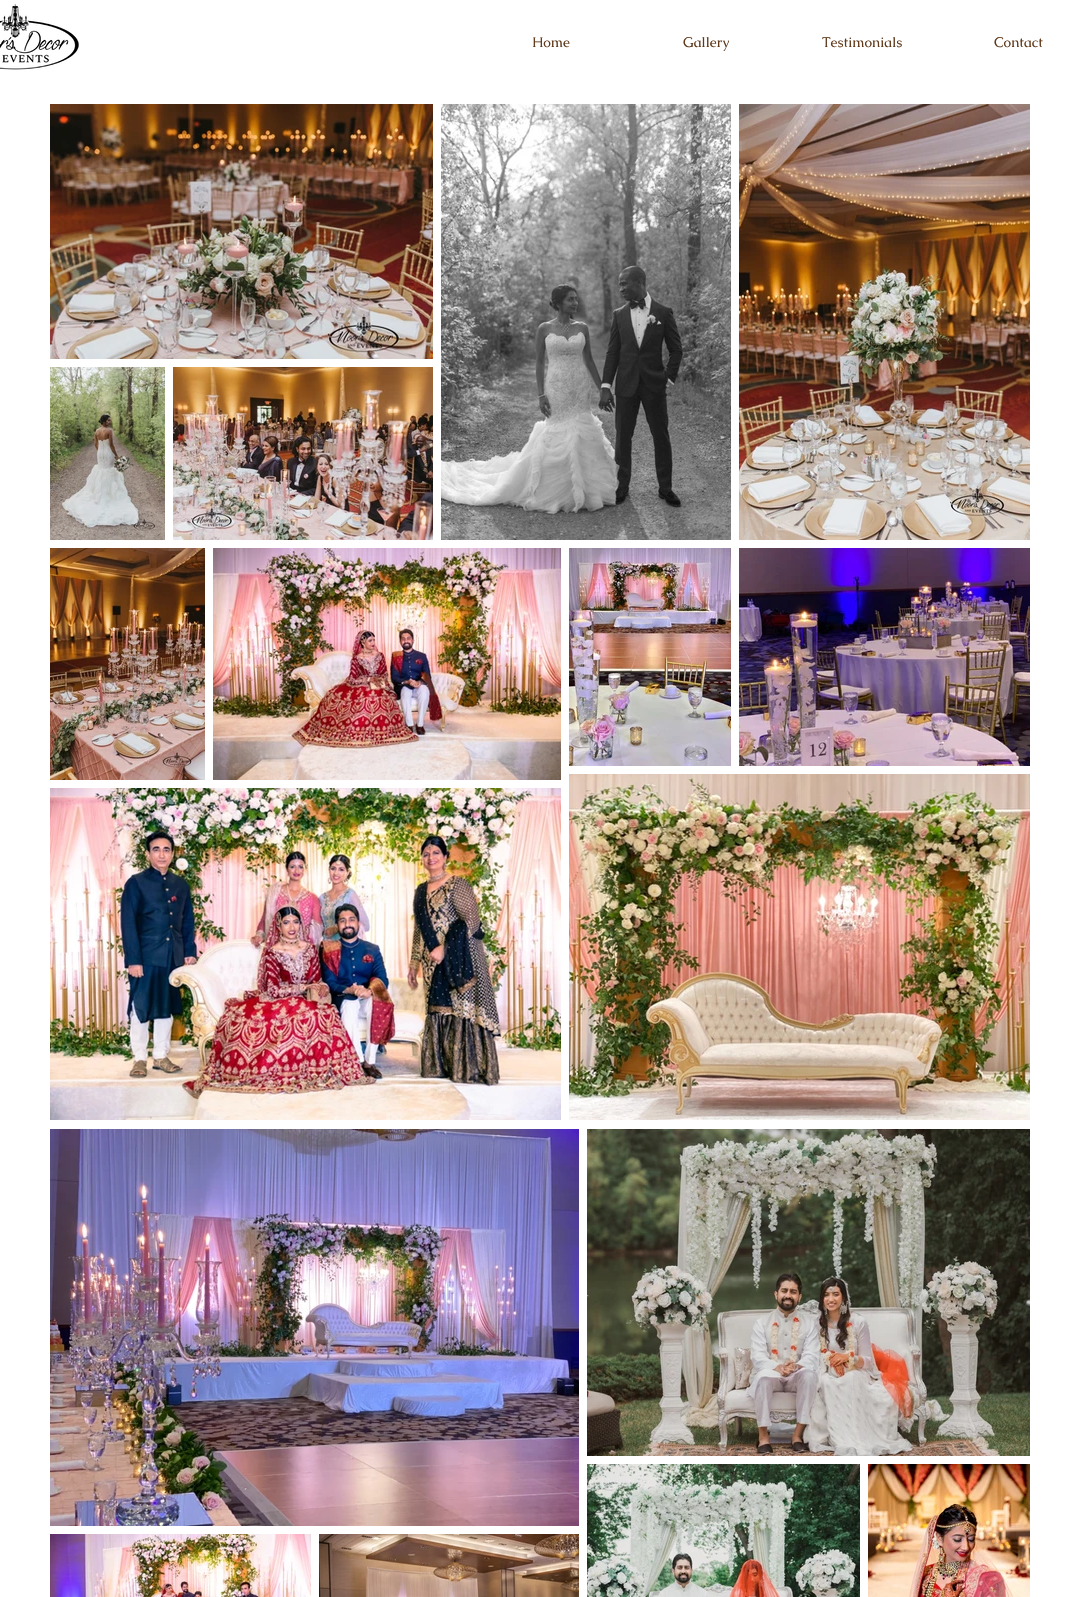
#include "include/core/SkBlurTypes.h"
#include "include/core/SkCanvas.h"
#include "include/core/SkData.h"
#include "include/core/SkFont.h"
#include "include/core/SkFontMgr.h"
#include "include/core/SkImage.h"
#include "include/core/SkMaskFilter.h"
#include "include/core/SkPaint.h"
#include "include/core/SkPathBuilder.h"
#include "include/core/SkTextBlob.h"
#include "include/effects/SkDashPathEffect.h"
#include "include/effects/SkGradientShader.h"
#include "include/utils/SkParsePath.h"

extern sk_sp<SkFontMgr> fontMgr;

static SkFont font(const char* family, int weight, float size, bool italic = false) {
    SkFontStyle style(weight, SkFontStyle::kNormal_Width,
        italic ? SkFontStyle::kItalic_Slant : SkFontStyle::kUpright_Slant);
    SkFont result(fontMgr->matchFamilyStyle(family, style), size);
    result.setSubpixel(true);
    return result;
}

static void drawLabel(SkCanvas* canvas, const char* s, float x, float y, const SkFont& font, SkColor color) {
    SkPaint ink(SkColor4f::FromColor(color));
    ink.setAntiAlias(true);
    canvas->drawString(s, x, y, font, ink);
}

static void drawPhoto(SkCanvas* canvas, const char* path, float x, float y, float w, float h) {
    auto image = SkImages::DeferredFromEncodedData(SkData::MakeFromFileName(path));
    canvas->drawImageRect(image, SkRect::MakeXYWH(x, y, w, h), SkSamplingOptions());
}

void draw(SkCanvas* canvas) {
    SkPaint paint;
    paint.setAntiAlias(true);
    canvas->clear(0xFFFFFFFF);
    drawPhoto(canvas, "assets/img1.png", 0, 4, 79, 66);
    SkFont font1 = font("Caudex", 400, 14);
    drawLabel(canvas, "Home", 532, 47, font1, 0xFF60391A);
    drawLabel(canvas, "Gallery", 683, 47, font1, 0xFF60391A);
    drawLabel(canvas, "Testimonials", 822, 47, font1, 0xFF60391A);
    drawLabel(canvas, "Contact", 994, 47, font1, 0xFF60391A);
    drawPhoto(canvas, "assets/img2.png", 50, 104, 383, 255);
    drawPhoto(canvas, "assets/img3.png", 441, 104, 290, 436);
    drawPhoto(canvas, "assets/img4.png", 739, 104, 291, 436);
    drawPhoto(canvas, "assets/img5.png", 50, 367, 115, 173);
    drawPhoto(canvas, "assets/img6.png", 173, 367, 260, 173);
    drawPhoto(canvas, "assets/img7.png", 50, 548, 155, 232);
    drawPhoto(canvas, "assets/img8.png", 213, 548, 348, 232);
    drawPhoto(canvas, "assets/img9.png", 569, 548, 162, 218);
    drawPhoto(canvas, "assets/img10.png", 739, 548, 291, 218);
    drawPhoto(canvas, "assets/img11.png", 50, 788, 511, 332);
    drawPhoto(canvas, "assets/img12.png", 569, 774, 461, 346);
    drawPhoto(canvas, "assets/img13.png", 50, 1129, 529, 397);
    drawPhoto(canvas, "assets/img14.png", 587, 1129, 443, 327);
    drawPhoto(canvas, "assets/img15.png", 50, 1534, 261, 63);
    drawPhoto(canvas, "assets/img16.png", 319, 1534, 260, 63);
    drawPhoto(canvas, "assets/img17.png", 587, 1464, 273, 133);
    drawPhoto(canvas, "assets/img18.png", 868, 1464, 162, 133);
}
